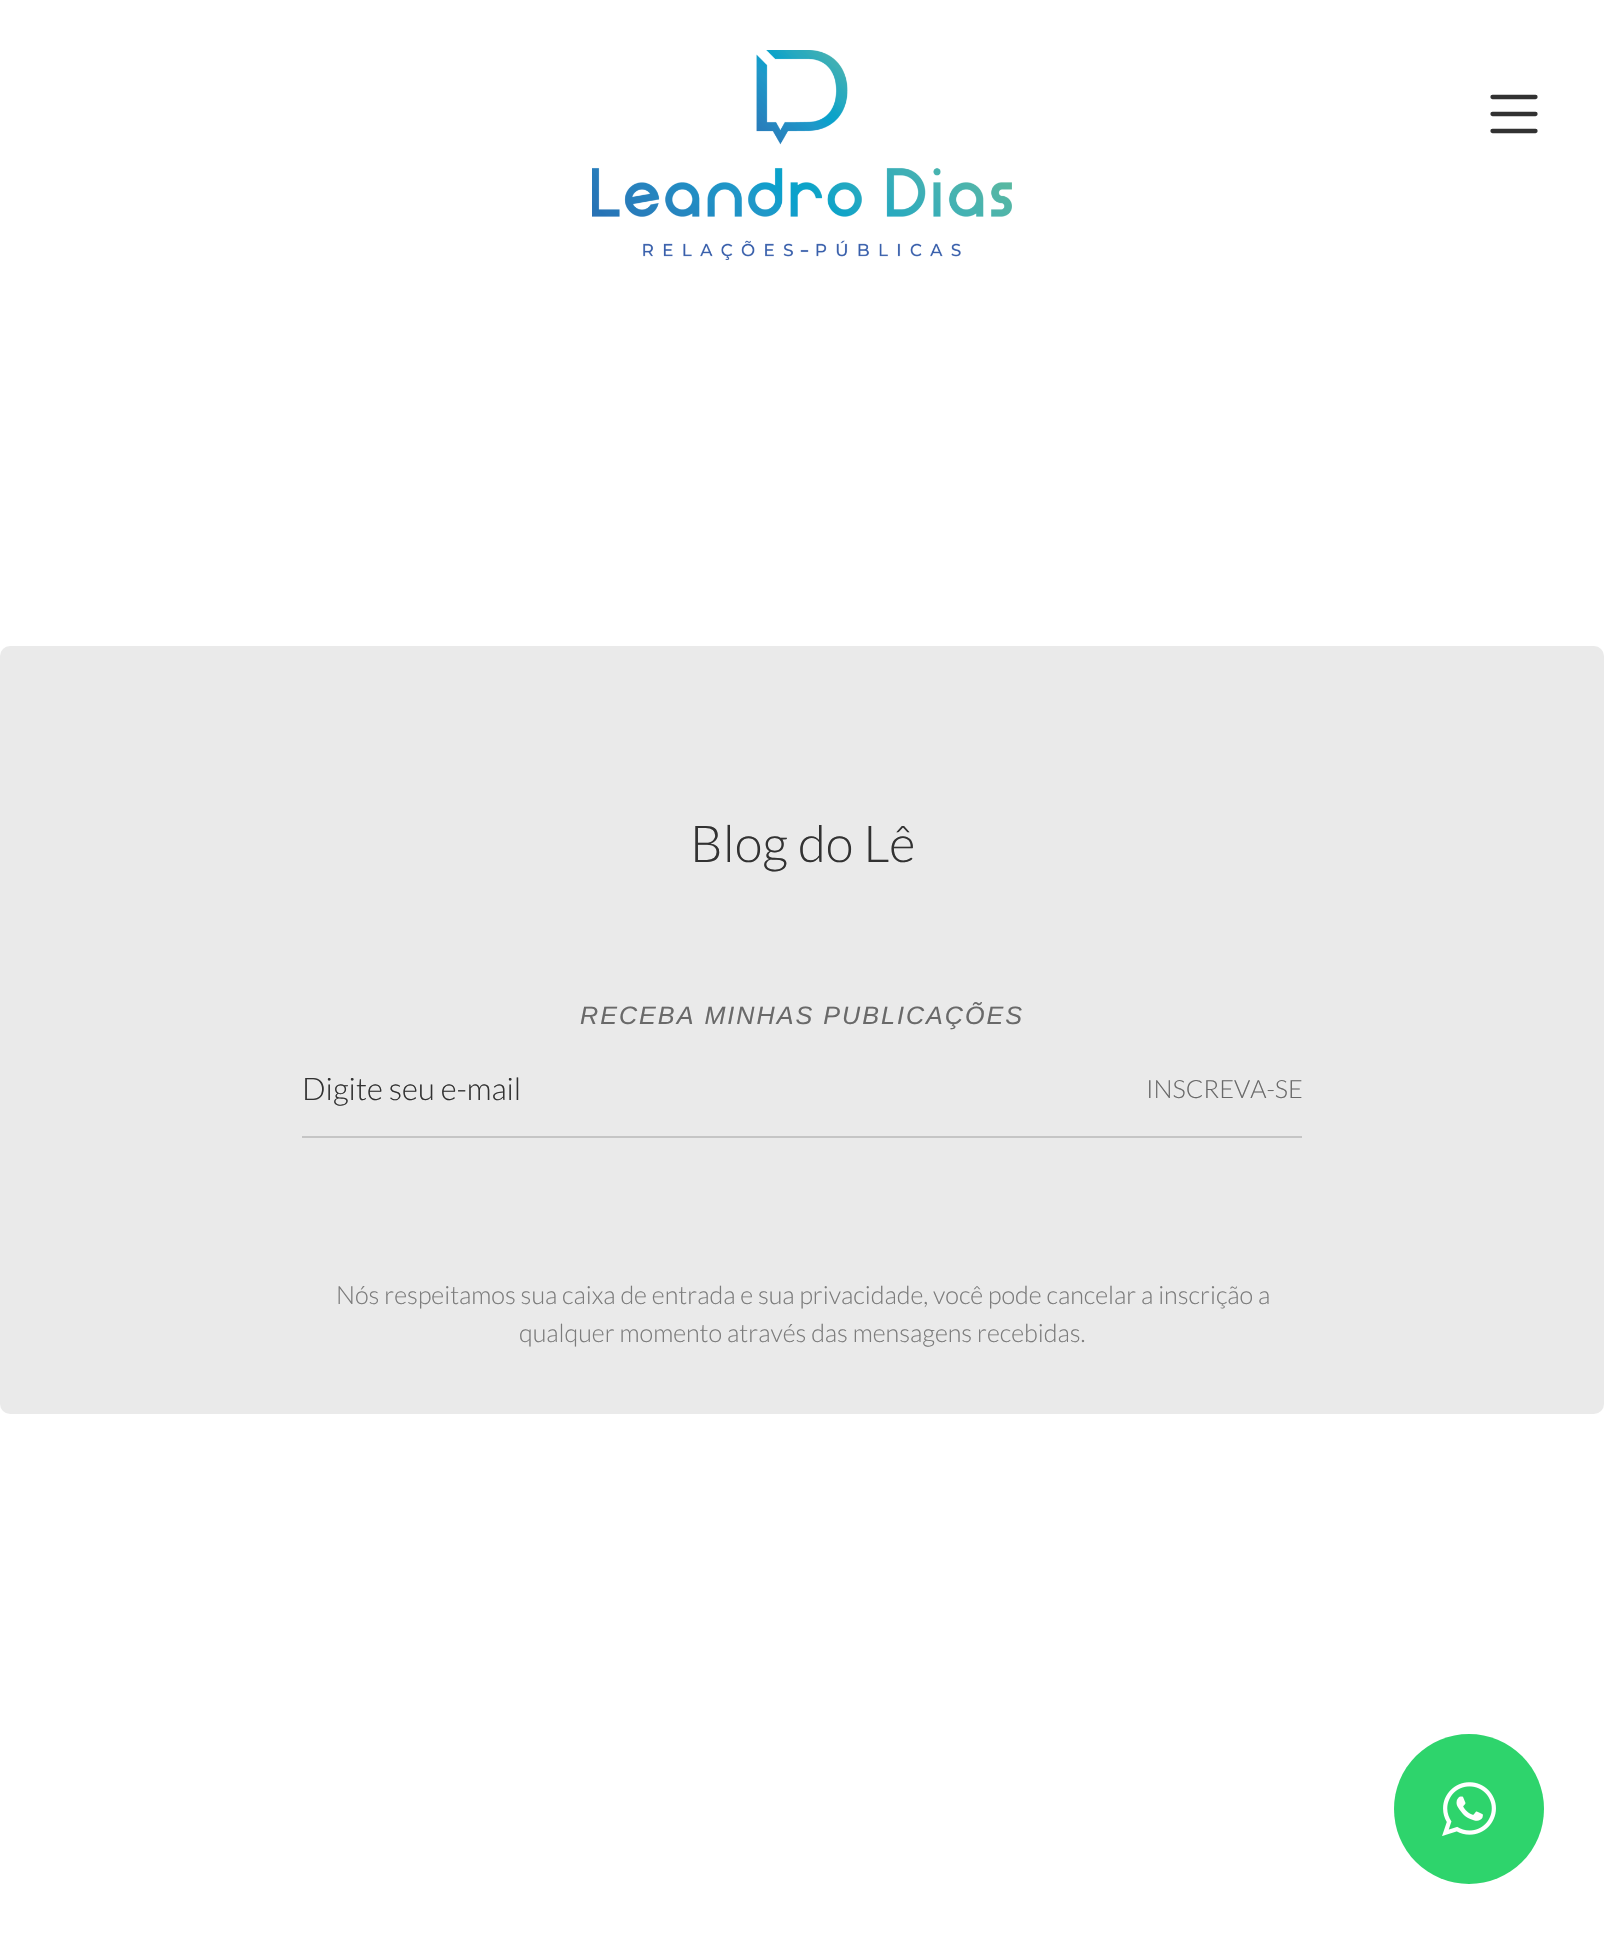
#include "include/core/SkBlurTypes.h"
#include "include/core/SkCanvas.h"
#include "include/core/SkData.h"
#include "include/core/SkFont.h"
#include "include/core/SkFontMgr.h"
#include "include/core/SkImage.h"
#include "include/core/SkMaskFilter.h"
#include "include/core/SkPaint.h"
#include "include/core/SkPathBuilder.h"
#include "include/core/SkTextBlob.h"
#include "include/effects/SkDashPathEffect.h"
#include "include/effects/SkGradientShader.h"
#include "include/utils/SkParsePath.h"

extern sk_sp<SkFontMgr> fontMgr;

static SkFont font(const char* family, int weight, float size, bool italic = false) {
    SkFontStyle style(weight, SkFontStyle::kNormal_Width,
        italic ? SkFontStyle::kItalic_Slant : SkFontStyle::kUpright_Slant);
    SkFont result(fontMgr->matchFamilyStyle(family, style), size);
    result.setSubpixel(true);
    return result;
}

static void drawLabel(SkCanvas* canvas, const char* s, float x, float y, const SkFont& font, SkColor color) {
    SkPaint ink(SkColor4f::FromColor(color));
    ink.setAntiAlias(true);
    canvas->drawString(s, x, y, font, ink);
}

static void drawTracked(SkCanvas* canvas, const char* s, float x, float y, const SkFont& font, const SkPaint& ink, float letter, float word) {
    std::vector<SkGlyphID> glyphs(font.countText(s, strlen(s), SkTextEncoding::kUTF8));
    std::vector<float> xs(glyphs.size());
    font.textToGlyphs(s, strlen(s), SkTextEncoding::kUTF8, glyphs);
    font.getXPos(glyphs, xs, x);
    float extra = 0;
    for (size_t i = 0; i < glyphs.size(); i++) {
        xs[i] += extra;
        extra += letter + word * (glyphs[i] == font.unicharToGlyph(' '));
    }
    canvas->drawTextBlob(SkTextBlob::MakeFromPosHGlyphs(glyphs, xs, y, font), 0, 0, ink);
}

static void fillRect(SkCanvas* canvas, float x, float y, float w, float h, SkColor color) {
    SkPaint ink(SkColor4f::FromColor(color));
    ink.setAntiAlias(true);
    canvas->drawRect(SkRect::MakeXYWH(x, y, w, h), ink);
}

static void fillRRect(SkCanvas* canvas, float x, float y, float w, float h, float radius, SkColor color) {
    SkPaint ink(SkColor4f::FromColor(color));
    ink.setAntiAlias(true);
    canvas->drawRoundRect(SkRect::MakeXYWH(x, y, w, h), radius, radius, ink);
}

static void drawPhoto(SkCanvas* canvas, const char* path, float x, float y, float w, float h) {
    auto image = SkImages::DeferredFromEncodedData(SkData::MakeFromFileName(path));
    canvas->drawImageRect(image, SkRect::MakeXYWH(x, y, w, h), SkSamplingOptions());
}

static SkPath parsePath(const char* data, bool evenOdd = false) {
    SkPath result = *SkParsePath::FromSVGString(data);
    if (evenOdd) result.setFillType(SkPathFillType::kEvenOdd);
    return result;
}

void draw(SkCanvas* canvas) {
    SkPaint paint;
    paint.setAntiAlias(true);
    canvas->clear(0xFFFFFFFF);
    drawPhoto(canvas, "assets/img1.png", 592, 50, 420, 210);
    paint.setStroke(true);
    paint.setStrokeWidth(4.3f);
    paint.setStrokeCap(SkPaint::kRound_Cap);
    paint.setColor(0xFF323232);
    canvas->drawPath(parsePath("M1492.5 97H1535.5M1492.5 114H1535.5M1492.5 131H1535.5"), paint);
    fillRRect(canvas, 0, 646, 1604, 768, 10, 0x1A323232);
    SkFont font1 = font("Lato", 300, 51);
    drawLabel(canvas, "Blog do Lê", 690, 862, font1, 0xFF323232);
    SkFont font2 = font("Liberation Sans", 400, 25.15f, true);
    paint.setStroke(false);
    paint.setColor(0xFF696969);
    drawTracked(canvas, "RECEBA MINHAS PUBLICAÇÕES", 580, 1024, font2, paint, 2, 0);
    fillRect(canvas, 302, 1136, 1000, 2, 0x33323232);
    SkFont font3 = font("Lato", 300, 31);
    drawLabel(canvas, "Digite seu e-mail", 302, 1100, font3, 0xFF323232);
    SkFont font4 = font("Lato", 300, 25.15f);
    drawLabel(canvas, "INSCREVA-SE", 1146, 1098, font4, 0xFF696969);
    drawLabel(canvas, "Nós respeitamos sua caixa de entrada e sua privacidade, você pode cancelar a inscrição a", 336, 1304, font4, 0xFF7B7B7B);
    drawLabel(canvas, "qualquer momento através das mensagens recebidas.", 519, 1342, font4, 0xFF7B7B7B);
    paint.setColor(0xFF25D366);
    canvas->drawCircle(1469, 1809, 75, paint);
    fillRect(canvas, 1394, 1734, 150, 150, 0x0AFFFFFF);
    drawPhoto(canvas, "assets/img2.png", 1442, 1782, 54, 54);
}
